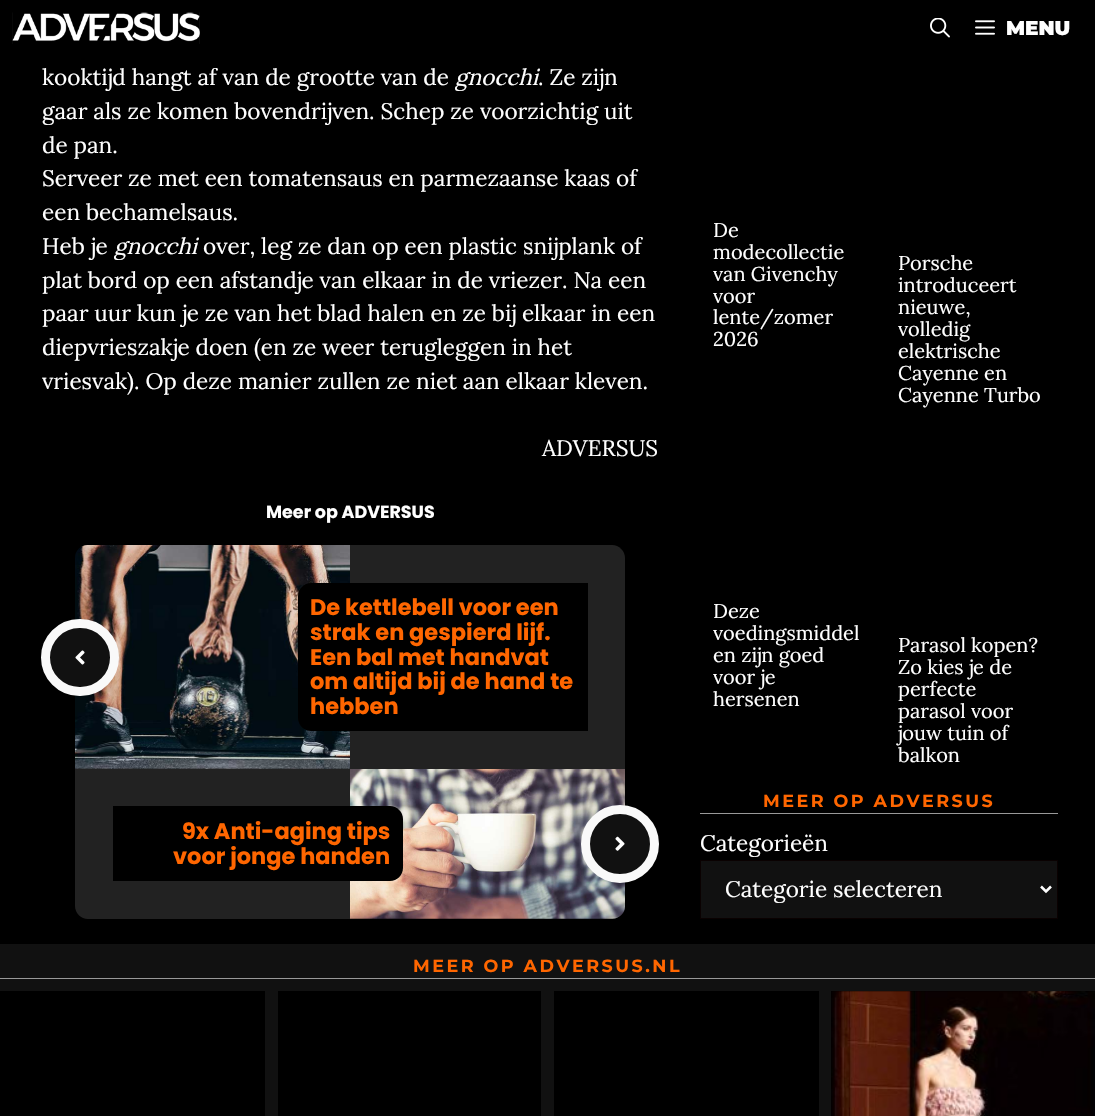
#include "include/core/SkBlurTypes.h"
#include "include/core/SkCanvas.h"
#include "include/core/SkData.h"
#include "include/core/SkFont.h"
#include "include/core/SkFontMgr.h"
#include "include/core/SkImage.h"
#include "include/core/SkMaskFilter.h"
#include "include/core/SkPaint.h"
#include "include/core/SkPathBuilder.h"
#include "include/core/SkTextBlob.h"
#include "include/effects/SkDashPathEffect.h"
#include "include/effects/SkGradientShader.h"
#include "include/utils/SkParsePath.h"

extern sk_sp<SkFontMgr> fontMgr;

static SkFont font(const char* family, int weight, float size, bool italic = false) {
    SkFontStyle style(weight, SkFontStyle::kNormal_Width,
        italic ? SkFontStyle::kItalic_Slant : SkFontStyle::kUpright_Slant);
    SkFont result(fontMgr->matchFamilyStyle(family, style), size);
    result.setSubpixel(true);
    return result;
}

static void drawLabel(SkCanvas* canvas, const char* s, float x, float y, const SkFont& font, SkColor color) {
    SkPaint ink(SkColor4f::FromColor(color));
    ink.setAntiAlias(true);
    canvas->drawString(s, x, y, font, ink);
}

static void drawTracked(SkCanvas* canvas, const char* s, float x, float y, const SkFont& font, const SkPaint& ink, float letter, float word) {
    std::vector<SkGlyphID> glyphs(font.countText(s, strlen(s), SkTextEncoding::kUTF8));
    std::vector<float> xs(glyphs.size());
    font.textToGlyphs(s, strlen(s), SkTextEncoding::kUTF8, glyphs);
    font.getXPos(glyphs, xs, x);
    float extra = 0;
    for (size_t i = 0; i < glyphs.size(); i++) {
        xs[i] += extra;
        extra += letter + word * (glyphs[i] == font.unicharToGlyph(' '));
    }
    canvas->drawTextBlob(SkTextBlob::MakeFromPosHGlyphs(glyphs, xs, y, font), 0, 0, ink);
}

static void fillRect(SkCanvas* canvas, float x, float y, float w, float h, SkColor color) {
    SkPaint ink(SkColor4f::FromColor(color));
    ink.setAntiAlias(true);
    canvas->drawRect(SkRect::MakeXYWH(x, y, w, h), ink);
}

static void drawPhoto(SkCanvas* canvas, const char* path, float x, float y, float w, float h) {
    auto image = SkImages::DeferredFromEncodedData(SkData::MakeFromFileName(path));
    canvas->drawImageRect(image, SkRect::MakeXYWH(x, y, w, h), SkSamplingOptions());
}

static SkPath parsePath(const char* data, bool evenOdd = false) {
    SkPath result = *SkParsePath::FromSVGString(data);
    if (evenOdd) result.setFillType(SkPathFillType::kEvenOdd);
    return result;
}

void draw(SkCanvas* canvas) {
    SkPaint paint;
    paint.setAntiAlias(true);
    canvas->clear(0xFF111111);
    fillRect(canvas, 0, 0, 1095, 944, 0xFF000000);
    drawPhoto(canvas, "assets/img1.png", 12, 12, 188, 32);
    drawPhoto(canvas, "assets/img2.png", 930, 18, 20, 20);
    drawPhoto(canvas, "assets/img3.png", 975, 20, 20, 15);
    SkFont font1 = font("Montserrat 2", 100, 20);
    drawLabel(canvas, "MENU", 1006, 35, font1, 0xFFFFFFFF);
    SkFont font2 = font("Lora", 400, 22.5f);
    drawLabel(canvas, "kooktijd hangt af van de grootte van de", 42, 85, font2, 0xFFFFFFFF);
    SkFont font3 = font("Lora", 400, 22.5f, true);
    drawLabel(canvas, "gnocchi", 455, 85, font3, 0xFFFFFFFF);
    drawLabel(canvas, ". Ze zijn", 538, 85, font2, 0xFFFFFFFF);
    drawLabel(canvas, "gaar als ze komen bovendrijven. Schep ze voorzichtig uit", 42, 119, font2, 0xFFFFFFFF);
    drawLabel(canvas, "de pan.", 42, 153, font2, 0xFFFFFFFF);
    drawLabel(canvas, "Serveer ze met een tomatensaus en parmezaanse kaas of", 42, 186, font2, 0xFFFFFFFF);
    drawLabel(canvas, "een bechamelsaus.", 42, 220, font2, 0xFFFFFFFF);
    drawLabel(canvas, "Heb je", 42, 254, font2, 0xFFFFFFFF);
    drawLabel(canvas, "gnocchi", 114, 254, font3, 0xFFFFFFFF);
    drawLabel(canvas, "over, leg ze dan op een plastic snijplank of", 203, 254, font2, 0xFFFFFFFF);
    drawLabel(canvas, "plat bord op een afstandje van elkaar in de vriezer. Na een", 42, 288, font2, 0xFFFFFFFF);
    drawLabel(canvas, "paar uur kun je ze van het blad halen en ze bij elkaar in een", 42, 321, font2, 0xFFFFFFFF);
    drawLabel(canvas, "diepvrieszakje doen (en ze weer terugleggen in het", 42, 355, font2, 0xFFFFFFFF);
    drawLabel(canvas, "vriesvak). Op deze manier zullen ze niet aan elkaar kleven.", 42, 389, font2, 0xFFFFFFFF);
    drawLabel(canvas, "ADVERSUS", 542, 456, font2, 0xFFFFFFFF);
    SkFont font4 = font("Poppins", 700, 17.5f);
    drawLabel(canvas, "Meer op ADVERSUS", 266, 518, font4, 0xFFFFFFFF);
    drawPhoto(canvas, "assets/img4.png", 75, 545, 275, 224);
    paint.setColor(0xFF111111);
    canvas->drawRoundRect(SkRect::MakeXYWH(45.5f, 623.5f, 69, 68), 34, 34, paint);
    paint.setStroke(true);
    paint.setStrokeWidth(9);
    paint.setColor(0xFFF9F9F9);
    canvas->drawRoundRect(SkRect::MakeXYWH(45.5f, 623.5f, 69, 68), 34, 34, paint);
    drawPhoto(canvas, "assets/img5.png", 75, 650, 10, 15);
    paint.setStroke(false);
    paint.setColor(0xFF222222);
    canvas->drawPath(parsePath("M350 545H612C619 545 625 551 625 558V769H350Z"), paint);
    paint.setColor(0xFF000000);
    canvas->drawPath(parsePath("M311 583H588V731H311C304 731 298 725 298 718V596C298 589 304 583 311 583Z"), paint);
    SkFont font5 = font("Poppins", 700, 22.5f);
    drawLabel(canvas, "De kettlebell voor een", 310, 615, font5, 0xFFFF6600);
    drawLabel(canvas, "strak en gespierd lijf.", 310, 640, font5, 0xFFFF6600);
    drawLabel(canvas, "Een bal met handvat", 310, 665, font5, 0xFFFF6600);
    drawLabel(canvas, "om altijd bij de hand te", 310, 689, font5, 0xFFFF6600);
    drawLabel(canvas, "hebben", 310, 714, font5, 0xFFFF6600);
    paint.setColor(0xFF222222);
    canvas->drawPath(parsePath("M75 769H350V919H88C81 919 75 913 75 906Z"), paint);
    drawPhoto(canvas, "assets/img6.png", 350, 769, 275, 150);
    paint.setColor(0xFF000000);
    canvas->drawPath(parsePath("M113 806H390C397 806 403 812 403 819V868C403 875 397 881 390 881H113Z"), paint);
    drawLabel(canvas, "9x Anti-aging tips", 182, 839, font5, 0xFFFF6600);
    drawLabel(canvas, "voor jonge handen", 173, 864, font5, 0xFFFF6600);
    paint.setColor(0xFF111111);
    canvas->drawCircle(620, 844, 34.5f, paint);
    paint.setStroke(true);
    paint.setColor(0xFFF9F9F9);
    canvas->drawCircle(620, 844, 34.5f, paint);
    drawPhoto(canvas, "assets/img7.png", 615, 836, 10, 15);
    SkFont font6 = font("Lora", 400, 20);
    drawLabel(canvas, "De", 713, 237, font6, 0xFFFFFFFF);
    drawLabel(canvas, "modecollectie", 713, 259, font6, 0xFFFFFFFF);
    drawLabel(canvas, "van Givenchy", 713, 281, font6, 0xFFFFFFFF);
    drawLabel(canvas, "voor", 713, 303, font6, 0xFFFFFFFF);
    drawLabel(canvas, "lente/zomer", 713, 324, font6, 0xFFFFFFFF);
    drawLabel(canvas, "2026", 713, 346, font6, 0xFFFFFFFF);
    drawLabel(canvas, "Porsche", 898, 270, font6, 0xFFFFFFFF);
    drawLabel(canvas, "introduceert", 898, 292, font6, 0xFFFFFFFF);
    drawLabel(canvas, "nieuwe,", 898, 314, font6, 0xFFFFFFFF);
    drawLabel(canvas, "volledig", 898, 336, font6, 0xFFFFFFFF);
    drawLabel(canvas, "elektrische", 898, 358, font6, 0xFFFFFFFF);
    drawLabel(canvas, "Cayenne en", 898, 380, font6, 0xFFFFFFFF);
    drawLabel(canvas, "Cayenne Turbo", 898, 402, font6, 0xFFFFFFFF);
    drawLabel(canvas, "Deze", 713, 618, font6, 0xFFFFFFFF);
    drawLabel(canvas, "voedingsmiddel", 713, 640, font6, 0xFFFFFFFF);
    drawLabel(canvas, "en zijn goed", 713, 662, font6, 0xFFFFFFFF);
    drawLabel(canvas, "voor je", 713, 684, font6, 0xFFFFFFFF);
    drawLabel(canvas, "hersenen", 713, 706, font6, 0xFFFFFFFF);
    drawLabel(canvas, "Parasol kopen?", 898, 652, font6, 0xFFFFFFFF);
    drawLabel(canvas, "Zo kies je de", 898, 674, font6, 0xFFFFFFFF);
    drawLabel(canvas, "perfecte", 898, 696, font6, 0xFFFFFFFF);
    drawLabel(canvas, "parasol voor", 898, 718, font6, 0xFFFFFFFF);
    drawLabel(canvas, "jouw tuin of", 898, 740, font6, 0xFFFFFFFF);
    drawLabel(canvas, "balkon", 898, 762, font6, 0xFFFFFFFF);
    fillRect(canvas, 700, 813, 358, 1, 0xFF999999);
    SkFont font7 = font("Montserrat", 100, 17.5f);
    paint.setStroke(false);
    paint.setColor(0xFFFF6600);
    drawTracked(canvas, "MEER OP ADVERSUS", 763, 807, font7, paint, 2.5f, 0);
    drawLabel(canvas, "Categorieën", 700, 851, font2, 0xFFFFFFFF);
    paint.setColor(0xFF111111);
    canvas->drawRect(SkRect::MakeXYWH(700.5f, 860.5f, 357, 58), paint);
    paint.setStroke(true);
    paint.setStrokeWidth(1);
    paint.setColor(0xFF0A0101);
    canvas->drawRect(SkRect::MakeXYWH(700.5f, 860.5f, 357, 58), paint);
    paint.setStrokeWidth(2.5f);
    paint.setColor(0xFFFFFFFF);
    canvas->drawPath(parsePath("M1041 886.5L1046 891.5L1051 886.5"), paint);
    drawLabel(canvas, "Categorie selecteren", 725, 897, font2, 0xFFFFFFFF);
    fillRect(canvas, 0, 978, 1095, 1, 0xFF999999);
    paint.setStroke(false);
    paint.setColor(0xFFFF6600);
    drawTracked(canvas, "MEER OP ADVERSUS.NL", 413, 972, font7, paint, 2.5f, 0);
    fillRect(canvas, 0, 991, 265, 125, 0xFF000000);
    fillRect(canvas, 278, 991, 263, 125, 0xFF000000);
    fillRect(canvas, 554, 991, 265, 125, 0xFF000000);
    fillRect(canvas, 831, 991, 264, 125, 0xFF000000);
    drawPhoto(canvas, "assets/img8.png", 831, 991, 264, 125);
}
